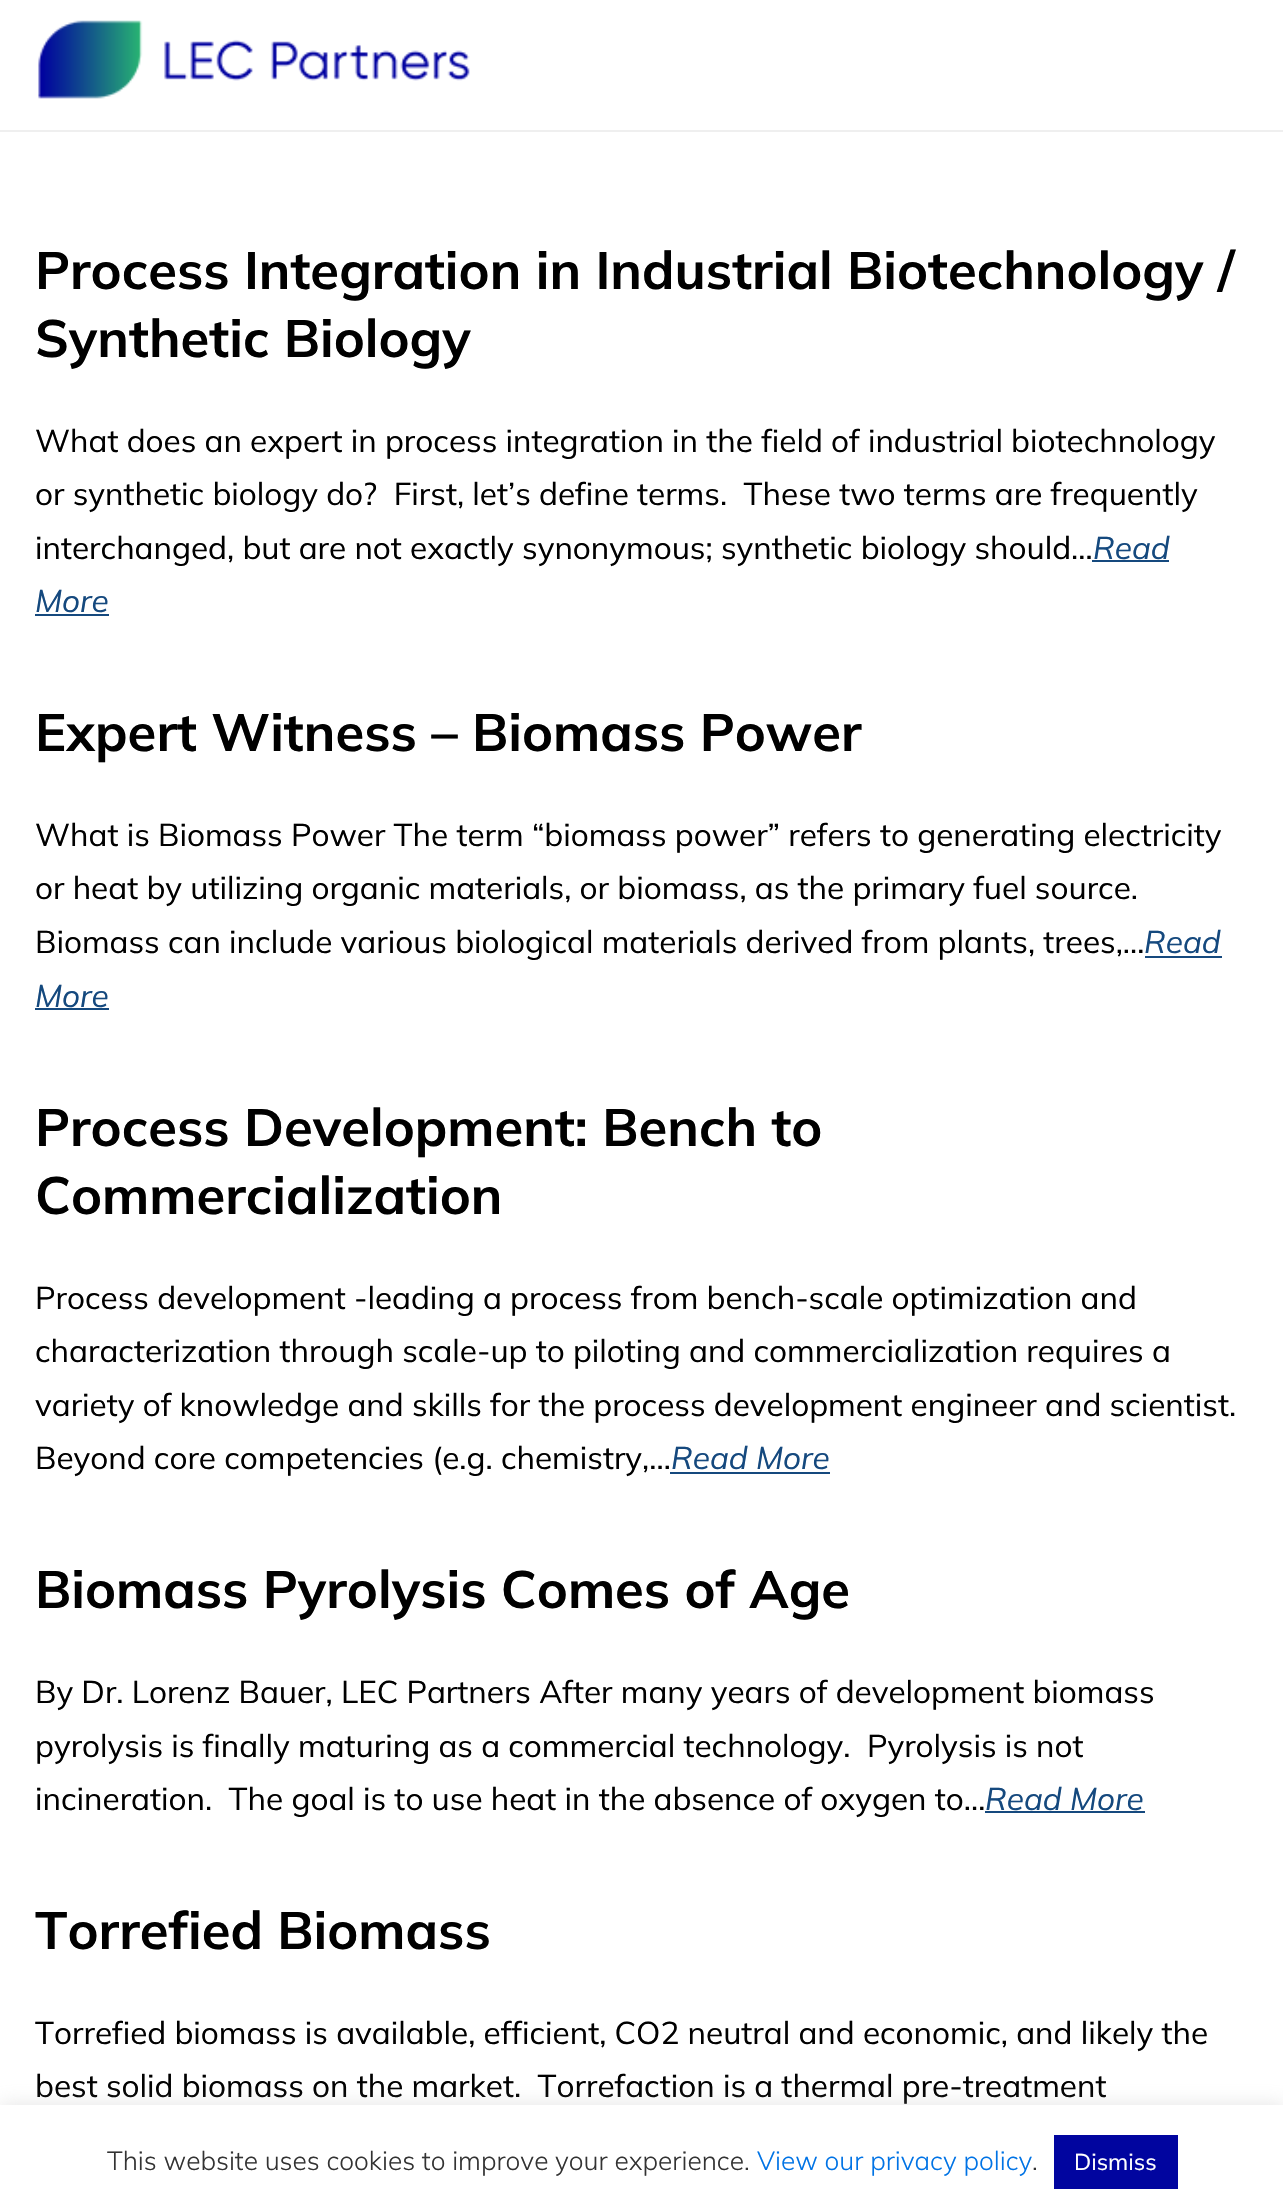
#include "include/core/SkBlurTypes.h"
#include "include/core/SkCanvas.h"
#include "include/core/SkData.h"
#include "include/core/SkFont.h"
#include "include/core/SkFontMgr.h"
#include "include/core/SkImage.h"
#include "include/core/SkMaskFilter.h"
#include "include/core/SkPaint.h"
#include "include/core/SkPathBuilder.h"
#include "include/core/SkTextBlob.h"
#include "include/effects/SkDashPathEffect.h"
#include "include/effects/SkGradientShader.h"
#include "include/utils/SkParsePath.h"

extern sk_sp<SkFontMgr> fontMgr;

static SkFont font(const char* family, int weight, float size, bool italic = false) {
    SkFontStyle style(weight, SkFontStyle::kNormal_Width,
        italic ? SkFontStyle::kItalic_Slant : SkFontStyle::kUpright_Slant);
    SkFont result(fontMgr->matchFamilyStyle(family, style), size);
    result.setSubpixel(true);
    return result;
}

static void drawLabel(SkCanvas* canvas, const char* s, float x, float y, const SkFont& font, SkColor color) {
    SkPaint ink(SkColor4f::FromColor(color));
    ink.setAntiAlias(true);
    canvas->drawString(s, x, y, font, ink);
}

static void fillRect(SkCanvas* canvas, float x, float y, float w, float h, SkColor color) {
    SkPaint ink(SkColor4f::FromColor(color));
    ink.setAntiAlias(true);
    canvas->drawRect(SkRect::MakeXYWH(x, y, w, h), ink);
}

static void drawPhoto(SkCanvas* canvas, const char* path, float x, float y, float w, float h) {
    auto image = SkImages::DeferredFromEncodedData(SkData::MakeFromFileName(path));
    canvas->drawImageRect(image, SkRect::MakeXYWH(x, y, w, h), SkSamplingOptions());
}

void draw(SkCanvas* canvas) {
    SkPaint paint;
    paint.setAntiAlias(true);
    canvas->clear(0xFFFFFFFF);
    fillRect(canvas, 0, 130, 1283, 2, 0xFFEFEFEF);
    drawPhoto(canvas, "assets/img1.png", 38, 20, 432, 79);
    SkFont font1 = font("Mulish", 700, 52.5f);
    drawLabel(canvas, "Process Integration in Industrial Biotechnology /", 35, 289, font1, 0xFF000000);
    drawLabel(canvas, "Synthetic Biology", 35, 357, font1, 0xFF000000);
    SkFont font2 = font("Mulish", 400, 31.5f);
    drawLabel(canvas, "What does an expert in process integration in the field of industrial biotechnology", 35, 452, font2, 0xFF000000);
    drawLabel(canvas, "or synthetic biology do?  First, let’s define terms.  These two terms are frequently", 35, 505, font2, 0xFF000000);
    drawLabel(canvas, "interchanged, but are not exactly synonymous; synthetic biology should…", 35, 559, font2, 0xFF000000);
    SkFont font3 = font("Mulish", 400, 31.5f, true);
    drawLabel(canvas, "Read", 1093, 559, font3, 0xFF15497E);
    fillRect(canvas, 1092, 560, 77, 2, 0xFF15497E);
    drawLabel(canvas, "More", 35, 612, font3, 0xFF15497E);
    fillRect(canvas, 35, 614, 74, 2, 0xFF15497E);
    drawLabel(canvas, "Expert Witness – Biomass Power", 35, 751, font1, 0xFF000000);
    drawLabel(canvas, "What is Biomass Power The term “biomass power” refers to generating electricity", 35, 846, font2, 0xFF000000);
    drawLabel(canvas, "or heat by utilizing organic materials, or biomass, as the primary fuel source.", 35, 899, font2, 0xFF000000);
    drawLabel(canvas, "Biomass can include various biological materials derived from plants, trees,…", 35, 953, font2, 0xFF000000);
    drawLabel(canvas, "Read", 1144, 953, font3, 0xFF15497E);
    fillRect(canvas, 1145, 956, 77, 2, 0xFF15497E);
    drawLabel(canvas, "More", 35, 1007, font3, 0xFF15497E);
    fillRect(canvas, 35, 1008, 74, 2, 0xFF15497E);
    drawLabel(canvas, "Process Development: Bench to", 35, 1146, font1, 0xFF000000);
    drawLabel(canvas, "Commercialization", 35, 1214, font1, 0xFF000000);
    drawLabel(canvas, "Process development -leading a process from bench-scale optimization and", 35, 1309, font2, 0xFF000000);
    drawLabel(canvas, "characterization through scale-up to piloting and commercialization requires a", 35, 1362, font2, 0xFF000000);
    drawLabel(canvas, "variety of knowledge and skills for the process development engineer and scientist.", 35, 1416, font2, 0xFF000000);
    drawLabel(canvas, "Beyond core competencies (e.g. chemistry,…", 35, 1469, font2, 0xFF000000);
    drawLabel(canvas, "Read More", 671, 1469, font3, 0xFF15497E);
    fillRect(canvas, 670, 1472, 160, 2, 0xFF15497E);
    drawLabel(canvas, "Biomass Pyrolysis Comes of Age", 35, 1608, font1, 0xFF000000);
    drawLabel(canvas, "By Dr. Lorenz Bauer, LEC Partners After many years of development biomass", 35, 1703, font2, 0xFF000000);
    drawLabel(canvas, "pyrolysis is finally maturing as a commercial technology.  Pyrolysis is not", 35, 1757, font2, 0xFF000000);
    drawLabel(canvas, "incineration.  The goal is to use heat in the absence of oxygen to…", 35, 1810, font2, 0xFF000000);
    drawLabel(canvas, "Read More", 985, 1810, font3, 0xFF15497E);
    fillRect(canvas, 985, 1811, 160, 2, 0xFF15497E);
    drawLabel(canvas, "Torrefied Biomass", 35, 1949, font1, 0xFF000000);
    drawLabel(canvas, "Torrefied biomass is available, efficient, CO2 neutral and economic, and likely the", 35, 2044, font2, 0xFF000000);
    drawLabel(canvas, "best solid biomass on the market.  Torrefaction is a thermal pre-treatment", 35, 2097, font2, 0xFF000000);
    paint.setColor(0x4DACABAB);
    paint.setMaskFilter(SkMaskFilter::MakeBlur(kNormal_SkBlurStyle, 9));
    canvas->drawRect(SkRect::MakeXYWH(0, 2104, 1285, 105), paint);
    paint.setMaskFilter(nullptr);
    fillRect(canvas, 0, 2105, 1283, 104, 0xFFFFFFFF);
    SkFont font4 = font("Mulish", 300, 26.25f);
    drawLabel(canvas, "This website uses cookies to improve your experience.", 107, 2170, font4, 0xFF333333);
    drawLabel(canvas, "View our privacy policy", 757, 2170, font4, 0xFF0073E5);
    drawLabel(canvas, ".", 1032, 2170, font4, 0xFF333333);
    fillRect(canvas, 1054, 2135, 124, 54, 0xFF01059F);
    SkFont font5 = font("Mulish", 400, 23);
    drawLabel(canvas, "Dismiss", 1074, 2170, font5, 0xFFFFFFFF);
}
